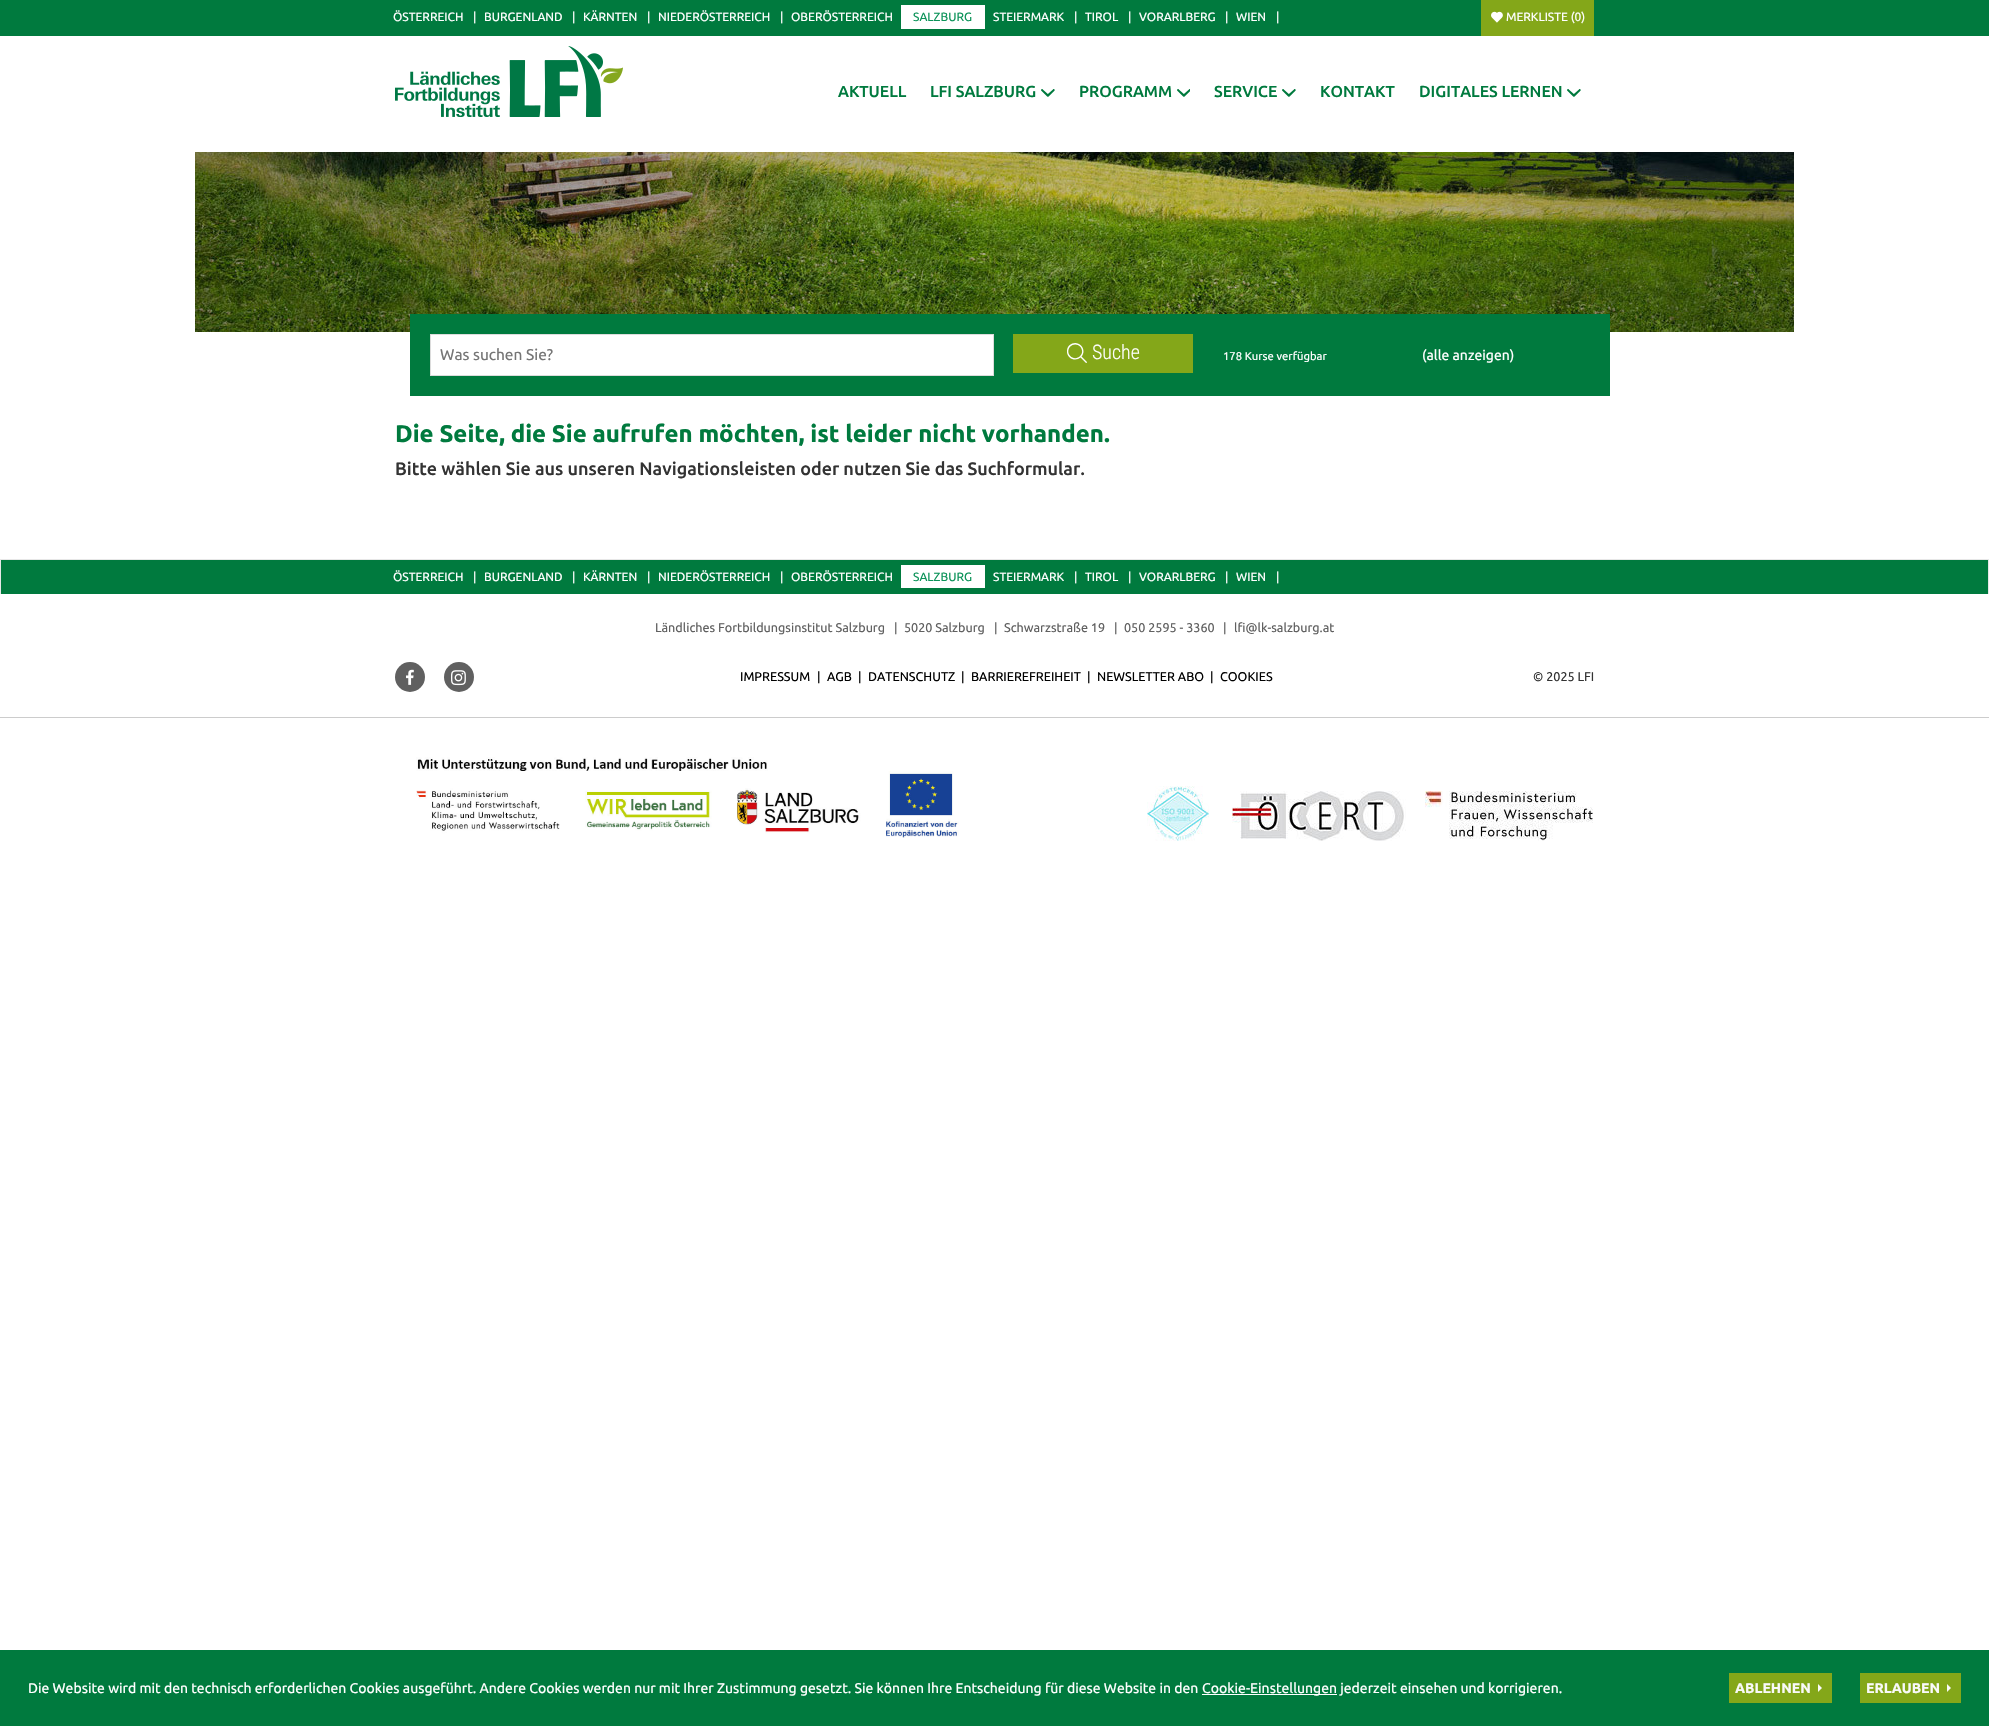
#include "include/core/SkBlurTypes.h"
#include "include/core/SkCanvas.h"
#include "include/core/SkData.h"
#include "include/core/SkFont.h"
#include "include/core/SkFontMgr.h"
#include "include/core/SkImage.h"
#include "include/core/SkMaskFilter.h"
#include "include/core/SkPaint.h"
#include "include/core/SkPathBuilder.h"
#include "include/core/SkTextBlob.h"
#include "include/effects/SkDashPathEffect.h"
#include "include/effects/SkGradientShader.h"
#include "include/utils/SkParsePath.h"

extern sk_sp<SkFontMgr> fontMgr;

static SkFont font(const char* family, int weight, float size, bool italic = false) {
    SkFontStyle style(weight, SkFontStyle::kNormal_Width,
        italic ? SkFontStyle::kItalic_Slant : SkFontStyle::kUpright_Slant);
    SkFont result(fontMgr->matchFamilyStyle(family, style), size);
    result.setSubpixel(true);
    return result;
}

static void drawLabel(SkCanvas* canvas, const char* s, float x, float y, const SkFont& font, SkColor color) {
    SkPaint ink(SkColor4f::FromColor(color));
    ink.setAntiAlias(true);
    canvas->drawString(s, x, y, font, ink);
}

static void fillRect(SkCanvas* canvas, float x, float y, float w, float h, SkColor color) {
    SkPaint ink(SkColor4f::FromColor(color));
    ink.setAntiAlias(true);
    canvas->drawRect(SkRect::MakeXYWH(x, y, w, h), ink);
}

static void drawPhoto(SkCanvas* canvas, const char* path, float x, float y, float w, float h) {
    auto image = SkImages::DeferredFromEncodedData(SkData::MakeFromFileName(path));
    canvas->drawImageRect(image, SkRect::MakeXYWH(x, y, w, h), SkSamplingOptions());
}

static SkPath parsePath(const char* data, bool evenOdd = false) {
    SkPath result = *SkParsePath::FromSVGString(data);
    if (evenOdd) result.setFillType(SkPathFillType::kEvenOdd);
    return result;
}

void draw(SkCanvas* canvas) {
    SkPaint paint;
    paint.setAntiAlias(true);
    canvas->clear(0xFFFFFFFF);
    fillRect(canvas, 0, 0, 1989, 36, 0xFF007A3E);
    SkFont font1 = font("Ubuntu", 400, 12);
    drawLabel(canvas, "ÖSTERREICH", 393, 21, font1, 0xFFFFFFFF);
    drawLabel(canvas, "|", 473, 21, font1, 0xFFFFFFFF);
    drawLabel(canvas, "BURGENLAND", 484, 21, font1, 0xFFFFFFFF);
    drawLabel(canvas, "|", 572, 21, font1, 0xFFFFFFFF);
    drawLabel(canvas, "KÄRNTEN", 583, 21, font1, 0xFFFFFFFF);
    drawLabel(canvas, "|", 647, 21, font1, 0xFFFFFFFF);
    drawLabel(canvas, "NIEDERÖSTERREICH", 658, 21, font1, 0xFFFFFFFF);
    drawLabel(canvas, "|", 780, 21, font1, 0xFFFFFFFF);
    drawLabel(canvas, "OBERÖSTERREICH", 791, 21, font1, 0xFFFFFFFF);
    fillRect(canvas, 901, 5, 84, 24, 0xFFFFFFFF);
    drawLabel(canvas, "SALZBURG", 913, 21, font1, 0xFF0C9359);
    drawLabel(canvas, "STEIERMARK", 993, 21, font1, 0xFFFFFFFF);
    drawLabel(canvas, "|", 1074, 21, font1, 0xFFFFFFFF);
    drawLabel(canvas, "TIROL", 1085, 21, font1, 0xFFFFFFFF);
    drawLabel(canvas, "|", 1128, 21, font1, 0xFFFFFFFF);
    drawLabel(canvas, "VORARLBERG", 1139, 21, font1, 0xFFFFFFFF);
    drawLabel(canvas, "|", 1225, 21, font1, 0xFFFFFFFF);
    drawLabel(canvas, "WIEN", 1236, 21, font1, 0xFFFFFFFF);
    drawLabel(canvas, "|", 1276, 21, font1, 0xFFFFFFFF);
    fillRect(canvas, 1481, 0, 113, 36, 0xFF84A719);
    drawPhoto(canvas, "assets/img1.png", 1491, 11, 12, 12);
    drawLabel(canvas, "MERKLISTE (0)", 1506, 21, font1, 0xFFFFFFFF);
    drawPhoto(canvas, "assets/img2.png", 395, 46, 228, 71);
    SkFont font2 = font("Ubuntu", 500, 16);
    drawLabel(canvas, "AKTUELL", 838, 97, font2, 0xFF007A3E);
    drawLabel(canvas, "LFI SALZBURG", 930, 97, font2, 0xFF007A3E);
    drawPhoto(canvas, "assets/img3.png", 1041, 89, 14, 8);
    drawLabel(canvas, "PROGRAMM", 1079, 97, font2, 0xFF007A3E);
    drawPhoto(canvas, "assets/img4.png", 1177, 89, 13, 8);
    drawLabel(canvas, "SERVICE", 1214, 97, font2, 0xFF007A3E);
    drawPhoto(canvas, "assets/img3.png", 1282, 89, 14, 8);
    drawLabel(canvas, "KONTAKT", 1320, 97, font2, 0xFF007A3E);
    drawLabel(canvas, "DIGITALES LERNEN", 1419, 97, font2, 0xFF007A3E);
    drawPhoto(canvas, "assets/img3.png", 1567, 89, 14, 8);
    drawPhoto(canvas, "assets/img5.png", 195, 152, 1599, 180);
    fillRect(canvas, 410, 314, 1200, 82, 0xFF007A3E);
    paint.setColor(0xFFFFFFFF);
    canvas->drawRect(SkRect::MakeXYWH(430.5f, 334.5f, 563, 41), paint);
    paint.setStroke(true);
    paint.setStrokeWidth(1);
    paint.setColor(0xFFDCDCDC);
    canvas->drawRect(SkRect::MakeXYWH(430.5f, 334.5f, 563, 41), paint);
    SkFont font3 = font("Ubuntu", 400, 15.5f);
    drawLabel(canvas, "Was suchen Sie?", 440, 360, font3, 0xFF757575);
    fillRect(canvas, 1013, 334, 180, 39, 0xFF84A719);
    drawPhoto(canvas, "assets/img6.png", 1067, 343, 20, 20);
    SkFont font4 = font("Roboto Condensed", 300, 20);
    drawLabel(canvas, "Suche", 1092, 359, font4, 0xFFFFFFFF);
    SkFont font5 = font("Ubuntu", 400, 11.25f);
    drawLabel(canvas, "178 Kurse verfügbar", 1223, 360, font5, 0xFFFFFFFF);
    SkFont font6 = font("Ubuntu", 400, 14);
    drawLabel(canvas, "(alle anzeigen)", 1422, 360, font6, 0xFFFFFFFF);
    SkFont font7 = font("Ubuntu", 700, 24);
    drawLabel(canvas, "Die Seite, die Sie aufrufen möchten, ist leider nicht vorhanden.", 395, 442, font7, 0xFF007A3E);
    SkFont font8 = font("Ubuntu", 500, 18);
    drawLabel(canvas, "Bitte wählen Sie aus unseren Navigationsleisten oder nutzen Sie das Suchformular.", 395, 475, font8, 0xFF333333);
    fillRect(canvas, 1, 560, 1987, 34, 0xFF007A3E);
    fillRect(canvas, 0, 559, 1989, 1, 0xFFE7E7E7);
    fillRect(canvas, 1988, 559, 1, 35, 0xFFE7E7E7);
    fillRect(canvas, 0, 559, 1, 35, 0xFFE7E7E7);
    drawLabel(canvas, "ÖSTERREICH", 393, 581, font1, 0xFFFFFFFF);
    drawLabel(canvas, "|", 473, 581, font1, 0xFFFFFFFF);
    drawLabel(canvas, "BURGENLAND", 484, 581, font1, 0xFFFFFFFF);
    drawLabel(canvas, "|", 572, 581, font1, 0xFFFFFFFF);
    drawLabel(canvas, "KÄRNTEN", 583, 581, font1, 0xFFFFFFFF);
    drawLabel(canvas, "|", 647, 581, font1, 0xFFFFFFFF);
    drawLabel(canvas, "NIEDERÖSTERREICH", 658, 581, font1, 0xFFFFFFFF);
    drawLabel(canvas, "|", 780, 581, font1, 0xFFFFFFFF);
    drawLabel(canvas, "OBERÖSTERREICH", 791, 581, font1, 0xFFFFFFFF);
    fillRect(canvas, 901, 565, 84, 23, 0xFFFFFFFF);
    drawLabel(canvas, "SALZBURG", 913, 581, font1, 0xFF0C9359);
    drawLabel(canvas, "STEIERMARK", 993, 581, font1, 0xFFFFFFFF);
    drawLabel(canvas, "|", 1074, 581, font1, 0xFFFFFFFF);
    drawLabel(canvas, "TIROL", 1085, 581, font1, 0xFFFFFFFF);
    drawLabel(canvas, "|", 1128, 581, font1, 0xFFFFFFFF);
    drawLabel(canvas, "VORARLBERG", 1139, 581, font1, 0xFFFFFFFF);
    drawLabel(canvas, "|", 1225, 581, font1, 0xFFFFFFFF);
    drawLabel(canvas, "WIEN", 1236, 581, font1, 0xFFFFFFFF);
    drawLabel(canvas, "|", 1276, 581, font1, 0xFFFFFFFF);
    fillRect(canvas, 0, 717, 1989, 1, 0xFFCCCCCC);
    SkFont font9 = font("Ubuntu", 400, 12.6f);
    drawLabel(canvas, "Ländliches Fortbildungsinstitut Salzburg", 655, 632, font9, 0xFF606060);
    drawLabel(canvas, "|", 894, 632, font9, 0xFF606060);
    drawLabel(canvas, "5020 Salzburg", 904, 632, font9, 0xFF606060);
    drawLabel(canvas, "|", 994, 632, font9, 0xFF606060);
    drawLabel(canvas, "Schwarzstraße 19", 1004, 632, font9, 0xFF606060);
    drawLabel(canvas, "|", 1114, 632, font9, 0xFF606060);
    drawLabel(canvas, "050 2595 - 3360", 1124, 632, font9, 0xFF606060);
    drawLabel(canvas, "|", 1223, 632, font9, 0xFF606060);
    drawLabel(canvas, "lfi@lk-salzburg.at", 1234, 632, font9, 0xFF606060);
    paint.setStroke(false);
    paint.setColor(0xFF606060);
    canvas->drawCircle(410, 677, 15, paint);
    drawPhoto(canvas, "assets/img7.png", 406, 669, 8, 16);
    canvas->drawCircle(459, 677, 15, paint);
    drawPhoto(canvas, "assets/img8.png", 451, 670, 15, 16);
    drawLabel(canvas, "IMPRESSUM", 740, 681, font9, 0xFF000000);
    drawLabel(canvas, "|", 817, 681, font9, 0xFF000000);
    drawLabel(canvas, "AGB", 827, 681, font9, 0xFF000000);
    drawLabel(canvas, "|", 858, 681, font9, 0xFF000000);
    drawLabel(canvas, "DATENSCHUTZ", 868, 681, font9, 0xFF000000);
    drawLabel(canvas, "|", 961, 681, font9, 0xFF000000);
    drawLabel(canvas, "BARRIEREFREIHEIT", 971, 681, font9, 0xFF000000);
    drawLabel(canvas, "|", 1087, 681, font9, 0xFF000000);
    drawLabel(canvas, "NEWSLETTER ABO", 1097, 681, font9, 0xFF000000);
    drawLabel(canvas, "|", 1210, 681, font9, 0xFF000000);
    drawLabel(canvas, "COOKIES", 1220, 681, font9, 0xFF000000);
    drawLabel(canvas, "© 2025 LFI", 1533, 681, font9, 0xFF333333);
    drawPhoto(canvas, "assets/img9.png", 416, 757, 543, 81);
    drawPhoto(canvas, "assets/img10.png", 1147, 786, 62, 55);
    drawPhoto(canvas, "assets/img11.png", 1232, 791, 174, 50);
    drawPhoto(canvas, "assets/img12.png", 1425, 791, 168, 50);
    fillRect(canvas, 0, 1650, 1989, 76, 0xFF007A3E);
    drawLabel(canvas, "Die Website wird mit den technisch erforderlichen Cookies ausgeführt. Andere Cookies werden nur mit Ihrer Zustimmung gesetzt. Sie können Ihre Entscheidung für diese Website in den", 28, 1693, font6, 0xFFFFFFFF);
    fillRect(canvas, 1202, 1694, 135, 1, 0xFFFFFFFF);
    drawLabel(canvas, "Cookie-Einstellungen jederzeit einsehen und korrigieren.", 1202, 1693, font6, 0xFFFFFFFF);
    fillRect(canvas, 1729, 1673, 103, 30, 0xFF84A719);
    SkFont font10 = font("Ubuntu", 700, 14);
    drawLabel(canvas, "ABLEHNEN", 1735, 1693, font10, 0xFFF9F9F9);
    paint.setColor(0xFFF9F9F9);
    canvas->drawPath(parsePath("M1818 1692V1684L1822 1688Z"), paint);
    fillRect(canvas, 1860, 1673, 101, 30, 0xFF84A719);
    drawLabel(canvas, "ERLAUBEN", 1866, 1693, font10, 0xFFF9F9F9);
    canvas->drawPath(parsePath("M1947 1692V1684L1951 1688Z"), paint);
}
